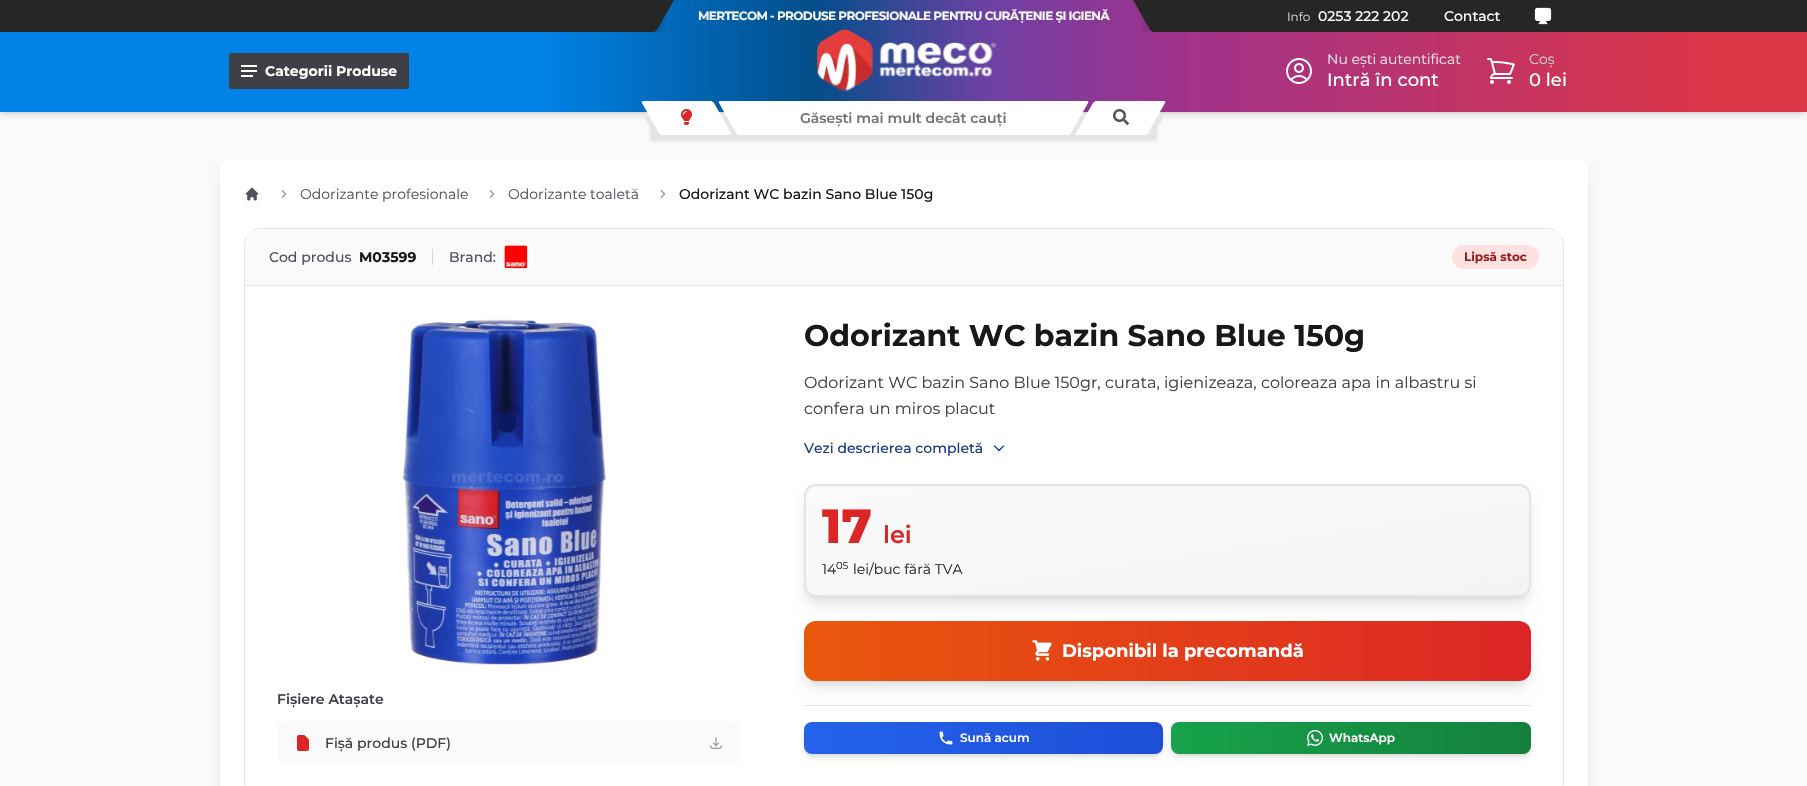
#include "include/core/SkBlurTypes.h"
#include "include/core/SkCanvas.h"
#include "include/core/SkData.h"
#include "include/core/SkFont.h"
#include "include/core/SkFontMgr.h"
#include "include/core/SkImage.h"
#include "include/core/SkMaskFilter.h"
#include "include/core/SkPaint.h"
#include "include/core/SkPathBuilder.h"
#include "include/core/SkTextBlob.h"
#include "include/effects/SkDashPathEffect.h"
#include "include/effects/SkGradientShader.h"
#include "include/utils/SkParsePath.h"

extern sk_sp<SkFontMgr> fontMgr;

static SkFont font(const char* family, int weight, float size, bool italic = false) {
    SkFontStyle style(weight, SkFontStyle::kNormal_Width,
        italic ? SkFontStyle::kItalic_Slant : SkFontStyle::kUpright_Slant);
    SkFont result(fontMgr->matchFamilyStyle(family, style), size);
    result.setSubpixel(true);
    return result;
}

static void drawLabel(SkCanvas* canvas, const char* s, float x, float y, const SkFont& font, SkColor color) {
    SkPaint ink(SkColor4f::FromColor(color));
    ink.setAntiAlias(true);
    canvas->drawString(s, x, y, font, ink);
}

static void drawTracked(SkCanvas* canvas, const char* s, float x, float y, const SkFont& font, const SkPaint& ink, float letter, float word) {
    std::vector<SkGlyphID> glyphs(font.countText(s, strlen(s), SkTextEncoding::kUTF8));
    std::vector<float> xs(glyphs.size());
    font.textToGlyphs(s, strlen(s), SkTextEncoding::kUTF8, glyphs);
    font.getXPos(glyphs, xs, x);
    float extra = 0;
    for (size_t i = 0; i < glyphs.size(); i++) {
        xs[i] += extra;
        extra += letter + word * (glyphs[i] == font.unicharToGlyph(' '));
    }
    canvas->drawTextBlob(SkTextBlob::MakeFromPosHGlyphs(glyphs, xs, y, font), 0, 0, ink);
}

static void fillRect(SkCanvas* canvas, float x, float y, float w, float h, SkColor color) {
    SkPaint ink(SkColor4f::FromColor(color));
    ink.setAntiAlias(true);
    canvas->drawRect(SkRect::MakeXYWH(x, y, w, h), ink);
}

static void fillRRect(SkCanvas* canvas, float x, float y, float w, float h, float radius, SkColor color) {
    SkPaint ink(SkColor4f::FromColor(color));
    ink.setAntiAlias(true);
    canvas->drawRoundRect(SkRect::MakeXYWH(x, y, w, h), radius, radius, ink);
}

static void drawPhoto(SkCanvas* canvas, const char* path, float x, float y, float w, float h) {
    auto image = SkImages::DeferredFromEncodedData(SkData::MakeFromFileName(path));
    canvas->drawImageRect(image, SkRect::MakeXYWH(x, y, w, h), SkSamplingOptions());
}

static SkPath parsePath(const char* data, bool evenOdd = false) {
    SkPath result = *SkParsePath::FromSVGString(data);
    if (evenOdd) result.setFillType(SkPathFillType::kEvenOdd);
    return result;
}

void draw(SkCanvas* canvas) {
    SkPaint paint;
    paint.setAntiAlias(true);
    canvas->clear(0xFFFAFAFA);
    paint.setColor(0x1A000000);
    paint.setMaskFilter(SkMaskFilter::MakeBlur(kNormal_SkBlurStyle, 2));
    canvas->drawRect(SkRect::MakeXYWH(2, 4, 1803, 108), paint);
    paint.setMaskFilter(nullptr);
    paint.setMaskFilter(SkMaskFilter::MakeBlur(kNormal_SkBlurStyle, 3));
    canvas->drawRect(SkRect::MakeXYWH(1, 5, 1805, 110), paint);
    paint.setMaskFilter(nullptr);
    {
        const SkColor colors[] = {0xFFDC3545, 0xFFA0328C, 0xFF7040A4, 0xFF034E8A, 0xFF0082E6};
        const float stops[] = {0.05f, 0.35f, 0.45f, 0.55f, 0.7f};
        const SkPoint ends[] = {{1807, 56}, {0, 56}};
        paint.setShader(SkGradientShader::MakeLinear(ends, colors, stops, 5, SkTileMode::kClamp));
        paint.setAlpha(255);
    }
    canvas->drawRect(SkRect::MakeXYWH(0, 0, 1807, 112), paint);
    canvas->save();
    canvas->clipRect(SkRect::MakeXYWH(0, 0, 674, 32));
    paint.setShader(nullptr);
    paint.setColor(0x17000000);
    paint.setMaskFilter(SkMaskFilter::MakeBlur(kNormal_SkBlurStyle, 1.5f));
    canvas->drawRoundRect(SkRect::MakeXYWH(-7, 1, 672, 32), 2.5f, 2.5f, paint);
    paint.setMaskFilter(nullptr);
    canvas->restore();
    paint.setColor(0xFF262626);
    canvas->drawPath(parsePath("M0 0H674L657 30C656 31 654 32 653 32H-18Z"), paint);
    SkFont font1 = font("Montserrat", 700, 12);
    paint.setColor(0xFFF4F4F5);
    drawTracked(canvas, "MERTECOM - PRODUSE PROFESIONALE PENTRU CURĂȚENIE ȘI IGIENĂ", 698, 20, font1, paint, -0.6f, 0);
    drawPhoto(canvas, "assets/img1.png", 817, 29, 180, 63);
    canvas->save();
    canvas->clipRect(SkRect::MakeXYWH(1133, 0, 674, 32));
    paint.setColor(0x17000000);
    paint.setMaskFilter(SkMaskFilter::MakeBlur(kNormal_SkBlurStyle, 1.5f));
    canvas->drawRoundRect(SkRect::MakeXYWH(1142, 1, 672, 32), 2.5f, 2.5f, paint);
    paint.setMaskFilter(nullptr);
    canvas->restore();
    paint.setColor(0xFF262626);
    canvas->drawPath(parsePath("M1133 0H1807L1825 32H1154C1153 32 1151 31 1150 30Z"), paint);
    SkFont font2 = font("Montserrat", 400, 12);
    drawLabel(canvas, "Info", 1287, 21, font2, 0xFFD4D4D8);
    SkFont font3 = font("Montserrat", 500, 14);
    drawLabel(canvas, "0253 222 202", 1318, 21, font3, 0xFFFFFFFF);
    drawLabel(canvas, "Contact", 1444, 21, font3, 0xFFFFFFFF);
    drawPhoto(canvas, "assets/img2.png", 1534, 7, 18, 18);
    fillRRect(canvas, 229, 53, 180, 36, 2, 0xFF3F3F46);
    drawPhoto(canvas, "assets/img3.png", 241, 65, 16, 12);
    SkFont font4 = font("Montserrat", 700, 14);
    drawLabel(canvas, "Categorii Produse", 265, 76, font4, 0xFFFFFFFF);
    drawPhoto(canvas, "assets/img4.png", 1286, 58, 26, 26);
    SkFont font5 = font("Montserrat", 400, 14);
    drawLabel(canvas, "Nu ești autentificat", 1327, 64, font5, 0xFFE4E4E7);
    SkFont font6 = font("Montserrat", 500, 18);
    drawLabel(canvas, "Intră în cont", 1327, 86, font6, 0xFFFFFFFF);
    drawPhoto(canvas, "assets/img5.png", 1487, 58, 28, 26);
    drawLabel(canvas, "Coș", 1529, 64, font5, 0xFFD4D4D8);
    drawLabel(canvas, "0 lei", 1529, 86, font6, 0xFFFFFFFF);
    canvas->save();
    canvas->clipRect(SkRect::MakeXYWH(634, 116, 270, 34));
    paint.setColor(0x17000000);
    paint.setMaskFilter(SkMaskFilter::MakeBlur(kNormal_SkBlurStyle, 1.5f));
    canvas->drawRoundRect(SkRect::MakeXYWH(650, 117, 270, 24), 2, 2, paint);
    paint.setMaskFilter(nullptr);
    canvas->restore();
    paint.setColor(0xFFE5E5E5);
    canvas->drawPath(parsePath("M644 116H914L926 138C927 139 926 140 925 140H657Z"), paint);
    canvas->save();
    canvas->clipRect(SkRect::MakeXYWH(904, 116, 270, 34));
    paint.setColor(0x17000000);
    paint.setMaskFilter(SkMaskFilter::MakeBlur(kNormal_SkBlurStyle, 1.5f));
    canvas->drawRoundRect(SkRect::MakeXYWH(887, 117, 270, 24), 2, 2, paint);
    paint.setMaskFilter(nullptr);
    canvas->restore();
    canvas->save();
    canvas->clipRect(SkRect::MakeXYWH(904, 116, 270, 34));
    paint.setColor(0xFFE5E5E5);
    canvas->drawPath(parsePath("M894 116H1164L1150 140H882C881 140 880 139 881 138Z"), paint);
    canvas->restore();
    paint.setColor(0xFFFFFFFF);
    canvas->drawPath(parsePath("M720 101H997C998 101 1000 102 1000 103L1018 133C1018 134 1018 135 1017 135H739C738 135 737 134 736 133L719 103C718 102 719 101 720 101Z"), paint);
    canvas->drawPath(parsePath("M643 101H711C712 101 713 102 714 103L731 133C732 134 731 135 730 135H662C661 135 660 134 659 133L642 103C641 102 642 101 643 101Z"), paint);
    drawPhoto(canvas, "assets/img6.png", 681, 109, 11, 16);
    canvas->drawPath(parsePath("M810 101H1087C1088 101 1089 102 1088 103L1071 133C1070 134 1069 135 1068 135H790C789 135 789 134 789 133L807 103C807 102 809 101 810 101Z"), paint);
    canvas->drawPath(parsePath("M1096 101H1164C1165 101 1166 102 1165 103L1148 133C1147 134 1146 135 1145 135H1077C1076 135 1075 134 1076 133L1093 103C1094 102 1095 101 1096 101Z"), paint);
    drawPhoto(canvas, "assets/img7.png", 1113, 109, 16, 16);
    SkFont font7 = font("Montserrat", 600, 14);
    drawLabel(canvas, "Găsești mai mult decât cauți", 800, 123, font7, 0xFF737373);
    paint.setColor(0x1A000000);
    paint.setMaskFilter(SkMaskFilter::MakeBlur(kNormal_SkBlurStyle, 7.5f));
    canvas->drawRoundRect(SkRect::MakeXYWH(223, 173, 1362, 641), 5, 5, paint);
    paint.setMaskFilter(nullptr);
    fillRRect(canvas, 220, 160, 1368, 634, 8, 0xFFFFFFFF);
    drawPhoto(canvas, "assets/img8.png", 245, 187, 14, 14);
    drawPhoto(canvas, "assets/img9.png", 281, 190, 6, 8);
    drawLabel(canvas, "Odorizante profesionale", 300, 199, font5, 0xFF52525B);
    drawPhoto(canvas, "assets/img9.png", 489, 190, 6, 8);
    drawLabel(canvas, "Odorizante toaletă", 508, 199, font5, 0xFF52525B);
    drawPhoto(canvas, "assets/img9.png", 660, 190, 6, 8);
    drawLabel(canvas, "Odorizant WC bazin Sano Blue 150g", 679, 199, font3, 0xFF18181B);
    paint.setStroke(true);
    paint.setStrokeWidth(1);
    paint.setColor(0xFFE4E4E7);
    canvas->drawRoundRect(SkRect::MakeXYWH(244.5f, 228.5f, 1319, 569), 15.5f, 15.5f, paint);
    paint.setStroke(false);
    paint.setColor(0xFFFAFAFA);
    canvas->drawPath(parsePath("M260 229H1548C1556.5 229 1563 235.5 1563 244V285H245V244C245 235.5 251.5 229 260 229Z"), paint);
    fillRect(canvas, 245, 285, 1318, 1, 0xFFE4E4E7);
    drawLabel(canvas, "Cod produs", 269, 262, font3, 0xFF52525B);
    drawLabel(canvas, "M03599", 359, 262, font4, 0xFF18181B);
    fillRect(canvas, 432, 249, 1, 16, 0xFFD4D4D8);
    drawLabel(canvas, "Brand:", 449, 262, font3, 0xFF52525B);
    drawPhoto(canvas, "assets/img10.png", 504, 245, 24, 24);
    fillRRect(canvas, 1452, 245, 87, 24, 12, 0xFFFEE2E2);
    drawLabel(canvas, "Lipsă stoc", 1464, 261, font1, 0xFF991B1B);
    drawPhoto(canvas, "assets/img11.png", 277, 318, 463, 347);
    drawLabel(canvas, "Fișiere Atașate", 277, 704, font7, 0xFF3F3F46);
    fillRRect(canvas, 277, 721, 463, 44, 8, 0xFFFAFAFA);
    drawPhoto(canvas, "assets/img12.png", 297, 735, 12, 16);
    drawLabel(canvas, "Fișă produs (PDF)", 325, 748, font3, 0xFF3F3F46);
    drawPhoto(canvas, "assets/img13.png", 710, 737, 12, 12);
    SkFont font8 = font("Montserrat", 700, 30);
    drawLabel(canvas, "Odorizant WC bazin Sano Blue 150g", 804, 346, font8, 0xFF18181B);
    SkFont font9 = font("Montserrat", 400, 16);
    drawLabel(canvas, "Odorizant WC bazin Sano Blue 150gr, curata, igienizeaza, coloreaza apa in albastru si", 804, 388, font9, 0xFF3F3F46);
    drawLabel(canvas, "confera un miros placut", 804, 414, font9, 0xFF3F3F46);
    drawLabel(canvas, "Vezi descrierea completă", 804, 453, font3, 0xFF1E3A8A);
    paint.setStroke(true);
    paint.setStrokeWidth(1.3f);
    paint.setStrokeCap(SkPaint::kRound_Cap);
    paint.setStrokeJoin(SkPaint::kRound_Join);
    paint.setColor(0xFF1E3A8A);
    canvas->drawPath(parsePath("M1003.5 446L999 450.5L994.5 446"), paint);
    paint.setStroke(false);
    paint.setColor(0x1A000000);
    paint.setMaskFilter(SkMaskFilter::MakeBlur(kNormal_SkBlurStyle, 3));
    canvas->drawRoundRect(SkRect::MakeXYWH(808, 492, 719, 105), 8, 8, paint);
    paint.setMaskFilter(nullptr);
    paint.setMaskFilter(SkMaskFilter::MakeBlur(kNormal_SkBlurStyle, 7.5f));
    canvas->drawRoundRect(SkRect::MakeXYWH(807, 497, 721, 107), 9, 9, paint);
    paint.setMaskFilter(nullptr);
    canvas->save();
    canvas->clipPath(parsePath("M816 484H1519C1525.5 484 1531 489.5 1531 496V585C1531 591.5 1525.5 597 1519 597H816C809.5 597 804 591.5 804 585V496C804 489.5 809.5 484 816 484Z"), true);
    {
        const SkColor colors[] = {0xFFFAFAFA, 0xFFF4F4F5};
        const float stops[] = {0, 1};
        const SkPoint ends[] = {{1151, 434}, {1184, 647}};
        paint.setShader(SkGradientShader::MakeLinear(ends, colors, stops, 2, SkTileMode::kClamp));
        paint.setAlpha(255);
    }
    canvas->drawRect(SkRect::MakeXYWH(806, 486, 723, 109), paint);
    canvas->restore();
    paint.setStroke(true);
    paint.setStrokeWidth(2);
    paint.setStrokeCap(SkPaint::kButt_Cap);
    paint.setStrokeJoin(SkPaint::kMiter_Join);
    paint.setShader(nullptr);
    paint.setColor(0xFFE4E4E7);
    canvas->drawRoundRect(SkRect::MakeXYWH(805, 485, 725, 111), 11, 11, paint);
    SkFont font10 = font("Montserrat", 800, 48);
    drawLabel(canvas, "17", 822, 543, font10, 0xFFDC2626);
    SkFont font11 = font("Montserrat", 600, 24);
    drawLabel(canvas, "lei", 883, 543, font11, 0xFFDC2626);
    drawLabel(canvas, "14", 822, 574, font5, 0xFF27272A);
    SkFont font12 = font("Montserrat", 400, 10);
    drawLabel(canvas, "05", 836, 569, font12, 0xFF27272A);
    drawLabel(canvas, "lei/buc fără TVA", 853, 574, font5, 0xFF27272A);
    paint.setStroke(false);
    paint.setColor(0x1A000000);
    paint.setMaskFilter(SkMaskFilter::MakeBlur(kNormal_SkBlurStyle, 3));
    canvas->drawRoundRect(SkRect::MakeXYWH(808, 629, 719, 52), 8, 8, paint);
    paint.setMaskFilter(nullptr);
    fillRect(canvas, 804, 705, 727, 1, 0xFFE4E4E7);
    paint.setMaskFilter(SkMaskFilter::MakeBlur(kNormal_SkBlurStyle, 7.5f));
    canvas->drawRoundRect(SkRect::MakeXYWH(807, 634, 721, 54), 9, 9, paint);
    paint.setMaskFilter(nullptr);
    {
        const SkColor colors[] = {0xFFEA580C, 0xFFDC2626};
        const float stops[] = {0, 1};
        const SkPoint ends[] = {{804, 651}, {1531, 651}};
        paint.setShader(SkGradientShader::MakeLinear(ends, colors, stops, 2, SkTileMode::kClamp));
        paint.setAlpha(255);
    }
    canvas->drawRoundRect(SkRect::MakeXYWH(804, 621, 727, 60), 12, 12, paint);
    drawPhoto(canvas, "assets/img14.png", 1032, 640, 20, 21);
    SkFont font13 = font("Montserrat", 700, 18);
    drawLabel(canvas, "Disponibil la precomandă", 1062, 657, font13, 0xFFFFFFFF);
    paint.setShader(nullptr);
    paint.setColor(0x1A000000);
    paint.setMaskFilter(SkMaskFilter::MakeBlur(kNormal_SkBlurStyle, 2));
    canvas->drawRoundRect(SkRect::MakeXYWH(806, 726, 355, 28), 6, 6, paint);
    paint.setMaskFilter(nullptr);
    paint.setMaskFilter(SkMaskFilter::MakeBlur(kNormal_SkBlurStyle, 3));
    canvas->drawRoundRect(SkRect::MakeXYWH(805, 727, 357, 30), 7, 7, paint);
    paint.setMaskFilter(nullptr);
    {
        const SkColor colors[] = {0xFF2563EB, 0xFF1D4ED8};
        const float stops[] = {0, 1};
        const SkPoint ends[] = {{804, 738}, {1163, 738}};
        paint.setShader(SkGradientShader::MakeLinear(ends, colors, stops, 2, SkTileMode::kClamp));
        paint.setAlpha(255);
    }
    canvas->drawRoundRect(SkRect::MakeXYWH(804, 722, 359, 32), 8, 8, paint);
    drawPhoto(canvas, "assets/img15.png", 939, 731, 14, 14);
    SkFont font14 = font("Montserrat", 600, 12);
    drawLabel(canvas, "Sună acum", 960, 742, font14, 0xFFFFFFFF);
    paint.setShader(nullptr);
    paint.setColor(0x1A000000);
    paint.setMaskFilter(SkMaskFilter::MakeBlur(kNormal_SkBlurStyle, 2));
    canvas->drawRoundRect(SkRect::MakeXYWH(1173, 726, 356, 28), 6, 6, paint);
    paint.setMaskFilter(nullptr);
    paint.setMaskFilter(SkMaskFilter::MakeBlur(kNormal_SkBlurStyle, 3));
    canvas->drawRoundRect(SkRect::MakeXYWH(1172, 727, 358, 30), 7, 7, paint);
    paint.setMaskFilter(nullptr);
    {
        const SkColor colors[] = {0xFF16A34A, 0xFF15803D};
        const float stops[] = {0, 1};
        const SkPoint ends[] = {{1171, 738}, {1531, 738}};
        paint.setShader(SkGradientShader::MakeLinear(ends, colors, stops, 2, SkTileMode::kClamp));
        paint.setAlpha(255);
    }
    canvas->drawRoundRect(SkRect::MakeXYWH(1171, 722, 360, 32), 8, 8, paint);
    drawPhoto(canvas, "assets/img16.png", 1307, 730, 16, 16);
    drawLabel(canvas, "WhatsApp", 1329, 742, font14, 0xFFFFFFFF);
}
